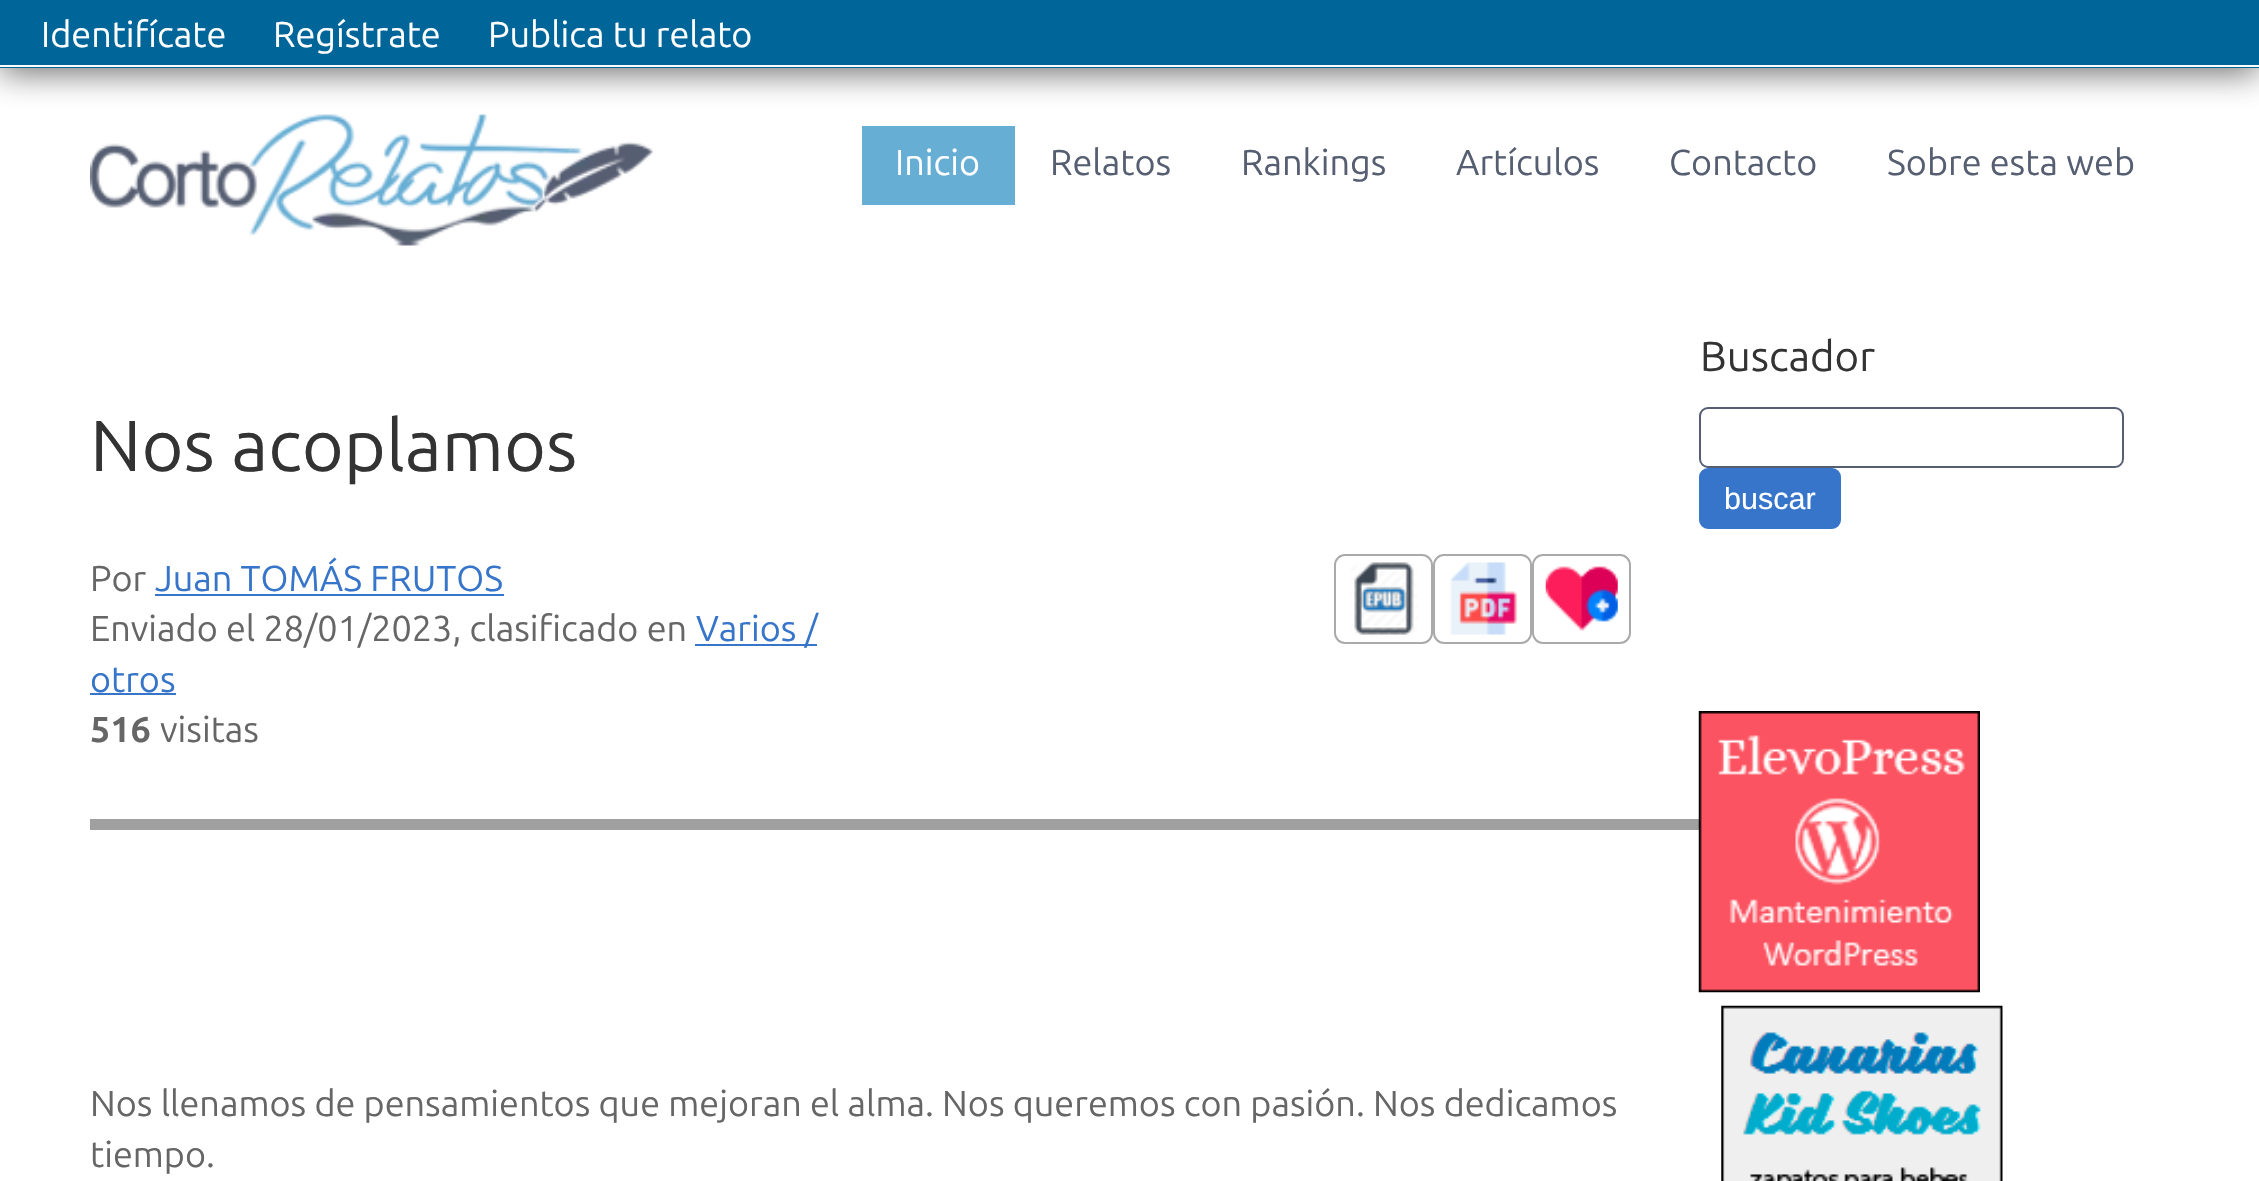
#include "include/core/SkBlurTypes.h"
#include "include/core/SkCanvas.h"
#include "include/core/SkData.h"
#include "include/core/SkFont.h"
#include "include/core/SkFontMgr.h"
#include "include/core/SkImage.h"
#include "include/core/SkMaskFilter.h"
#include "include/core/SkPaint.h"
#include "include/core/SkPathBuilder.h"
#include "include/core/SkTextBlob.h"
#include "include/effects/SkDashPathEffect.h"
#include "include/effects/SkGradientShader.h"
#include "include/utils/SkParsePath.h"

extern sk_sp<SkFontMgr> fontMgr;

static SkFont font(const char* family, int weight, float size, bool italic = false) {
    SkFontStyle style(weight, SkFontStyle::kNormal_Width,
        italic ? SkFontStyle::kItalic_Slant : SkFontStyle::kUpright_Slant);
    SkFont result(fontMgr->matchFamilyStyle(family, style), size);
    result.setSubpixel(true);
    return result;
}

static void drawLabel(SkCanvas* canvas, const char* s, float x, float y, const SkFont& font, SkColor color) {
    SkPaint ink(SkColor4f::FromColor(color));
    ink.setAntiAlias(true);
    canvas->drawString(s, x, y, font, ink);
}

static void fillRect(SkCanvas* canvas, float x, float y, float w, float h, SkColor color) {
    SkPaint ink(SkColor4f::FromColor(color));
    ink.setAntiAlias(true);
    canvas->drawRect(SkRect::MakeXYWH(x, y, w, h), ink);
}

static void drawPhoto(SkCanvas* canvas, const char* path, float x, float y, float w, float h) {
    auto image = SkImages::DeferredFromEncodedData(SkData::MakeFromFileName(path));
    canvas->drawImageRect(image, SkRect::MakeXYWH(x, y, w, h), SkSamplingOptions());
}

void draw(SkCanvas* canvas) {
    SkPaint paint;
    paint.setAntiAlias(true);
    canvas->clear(0xFFFFFFFF);
    drawPhoto(canvas, "assets/img1.png", 90, 114, 563, 132);
    paint.setColor(0xBF323232);
    paint.setMaskFilter(SkMaskFilter::MakeBlur(kNormal_SkBlurStyle, 17));
    canvas->drawRect(SkRect::MakeXYWH(0, 5, 2259, 67), paint);
    paint.setMaskFilter(nullptr);
    fillRect(canvas, 0, 0, 2259, 68, 0xFF006699);
    fillRect(canvas, 0, 65, 2259, 2, 0xFFFFFFFF);
    SkFont font1 = font("Ubuntu", 400, 36);
    drawLabel(canvas, "Identifícate", 41, 47, font1, 0xFFFFFFFF);
    drawLabel(canvas, "Regístrate", 273, 47, font1, 0xFFFFFFFF);
    drawLabel(canvas, "Publica tu relato", 488, 47, font1, 0xFFFFFFFF);
    fillRect(canvas, 862, 126, 153, 79, 0xFF67AED4);
    drawLabel(canvas, "Inicio", 895, 175, font1, 0xFFFFFFFF);
    drawLabel(canvas, "Relatos", 1050, 175, font1, 0xFF565F72);
    drawLabel(canvas, "Rankings", 1241, 175, font1, 0xFF565F72);
    drawLabel(canvas, "Artículos", 1456, 175, font1, 0xFF565F72);
    drawLabel(canvas, "Contacto", 1669, 175, font1, 0xFF565F72);
    drawLabel(canvas, "Sobre esta web", 1887, 175, font1, 0xFF565F72);
    SkFont font2 = font("Ubuntu", 400, 72);
    drawLabel(canvas, "Nos acoplamos", 90, 471, font2, 0xFF333333);
    drawLabel(canvas, "Por", 90, 591, font1, 0xFF666666);
    drawLabel(canvas, "Juan TOMÁS FRUTOS", 155, 591, font1, 0xFF3675CA);
    fillRect(canvas, 155, 594, 349, 2, 0xFF3675CA);
    drawLabel(canvas, "Enviado el 28/01/2023, clasificado en", 90, 641, font1, 0xFF666666);
    fillRect(canvas, 695, 644, 122, 2, 0xFF3675CA);
    drawLabel(canvas, "Varios /", 696, 641, font1, 0xFF3675CA);
    drawLabel(canvas, "otros", 90, 692, font1, 0xFF3675CA);
    fillRect(canvas, 90, 693, 86, 2, 0xFF3675CA);
    SkFont font3 = font("Ubuntu", 700, 36);
    drawLabel(canvas, "516", 90, 742, font3, 0xFF666666);
    drawLabel(canvas, "visitas", 160, 742, font1, 0xFF666666);
    paint.setStroke(true);
    paint.setStrokeWidth(2);
    paint.setColor(0xFFAAAAAA);
    canvas->drawRoundRect(SkRect::MakeXYWH(1335, 555, 97, 88), 10, 10, paint);
    drawPhoto(canvas, "assets/img2.png", 1351, 562, 66, 73);
    canvas->drawRoundRect(SkRect::MakeXYWH(1434, 555, 97, 88), 10, 10, paint);
    drawPhoto(canvas, "assets/img3.png", 1450, 562, 68, 73);
    canvas->drawRoundRect(SkRect::MakeXYWH(1533, 555, 97, 88), 10, 10, paint);
    drawPhoto(canvas, "assets/img4.png", 1545, 566, 73, 65);
    fillRect(canvas, 90, 819, 1609, 11, 0xFFA0A0A0);
    drawLabel(canvas, "Nos llenamos de pensamientos que mejoran el alma. Nos queremos con pasión. Nos dedicamos", 90, 1116, font1, 0xFF666666);
    drawLabel(canvas, "tiempo.", 90, 1167, font1, 0xFF666666);
    SkFont font4 = font("Ubuntu", 400, 42);
    drawLabel(canvas, "Buscador", 1700, 371, font4, 0xFF333333);
    paint.setColor(0xFF565F72);
    canvas->drawRoundRect(SkRect::MakeXYWH(1700, 408, 423, 59), 8, 8, paint);
    paint.setStroke(false);
    paint.setColor(0xFF3675CA);
    canvas->drawRoundRect(SkRect::MakeXYWH(1700, 469, 140, 59), 8, 8, paint);
    paint.setStroke(true);
    canvas->drawRoundRect(SkRect::MakeXYWH(1700, 469, 140, 59), 8, 8, paint);
    SkFont font5 = font("Liberation Sans", 400, 30.5f);
    drawLabel(canvas, "buscar", 1724, 509, font5, 0xFFFFFFFF);
    drawPhoto(canvas, "assets/img5.png", 1698, 711, 282, 282);
    drawPhoto(canvas, "assets/img6.png", 1721, 1005, 282, 176);
}
